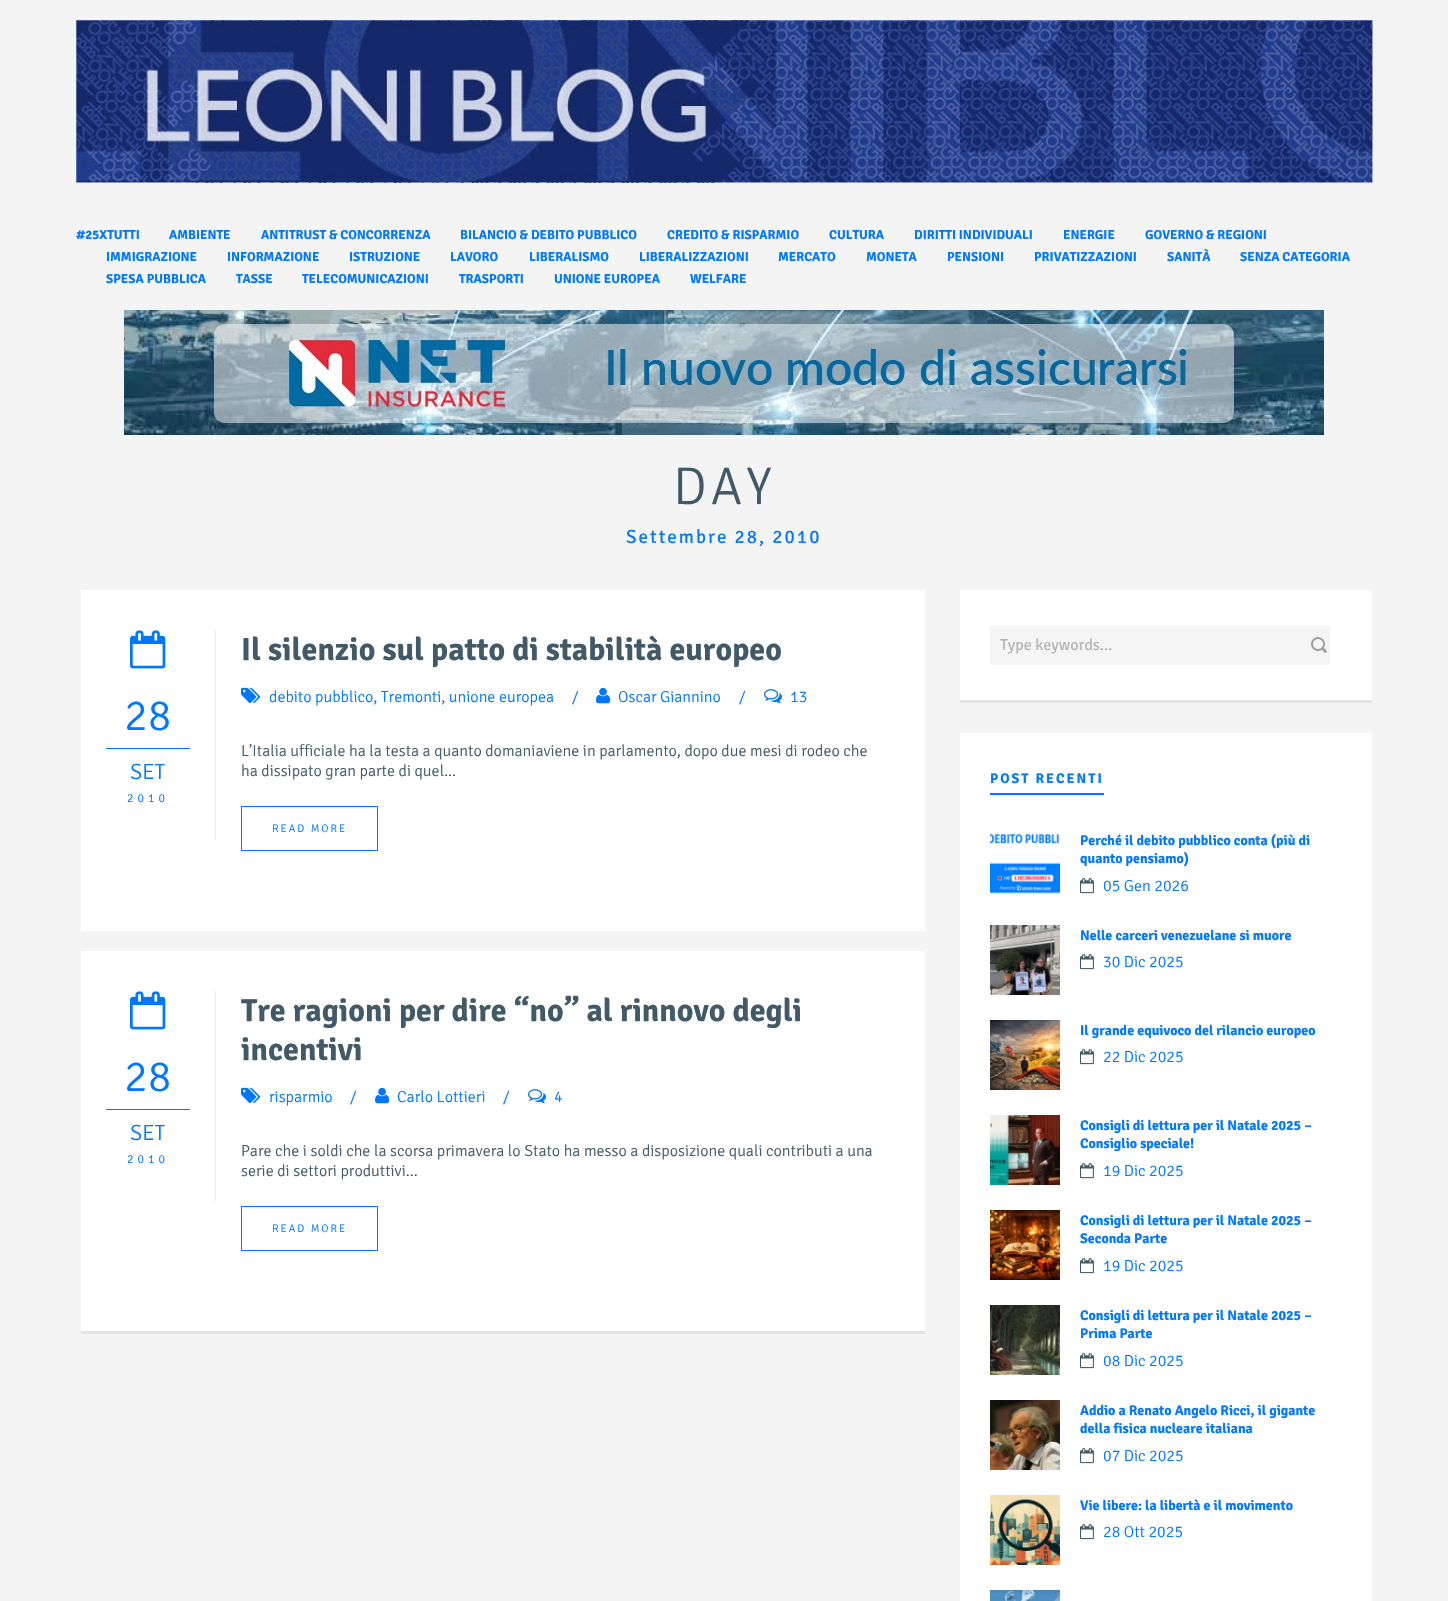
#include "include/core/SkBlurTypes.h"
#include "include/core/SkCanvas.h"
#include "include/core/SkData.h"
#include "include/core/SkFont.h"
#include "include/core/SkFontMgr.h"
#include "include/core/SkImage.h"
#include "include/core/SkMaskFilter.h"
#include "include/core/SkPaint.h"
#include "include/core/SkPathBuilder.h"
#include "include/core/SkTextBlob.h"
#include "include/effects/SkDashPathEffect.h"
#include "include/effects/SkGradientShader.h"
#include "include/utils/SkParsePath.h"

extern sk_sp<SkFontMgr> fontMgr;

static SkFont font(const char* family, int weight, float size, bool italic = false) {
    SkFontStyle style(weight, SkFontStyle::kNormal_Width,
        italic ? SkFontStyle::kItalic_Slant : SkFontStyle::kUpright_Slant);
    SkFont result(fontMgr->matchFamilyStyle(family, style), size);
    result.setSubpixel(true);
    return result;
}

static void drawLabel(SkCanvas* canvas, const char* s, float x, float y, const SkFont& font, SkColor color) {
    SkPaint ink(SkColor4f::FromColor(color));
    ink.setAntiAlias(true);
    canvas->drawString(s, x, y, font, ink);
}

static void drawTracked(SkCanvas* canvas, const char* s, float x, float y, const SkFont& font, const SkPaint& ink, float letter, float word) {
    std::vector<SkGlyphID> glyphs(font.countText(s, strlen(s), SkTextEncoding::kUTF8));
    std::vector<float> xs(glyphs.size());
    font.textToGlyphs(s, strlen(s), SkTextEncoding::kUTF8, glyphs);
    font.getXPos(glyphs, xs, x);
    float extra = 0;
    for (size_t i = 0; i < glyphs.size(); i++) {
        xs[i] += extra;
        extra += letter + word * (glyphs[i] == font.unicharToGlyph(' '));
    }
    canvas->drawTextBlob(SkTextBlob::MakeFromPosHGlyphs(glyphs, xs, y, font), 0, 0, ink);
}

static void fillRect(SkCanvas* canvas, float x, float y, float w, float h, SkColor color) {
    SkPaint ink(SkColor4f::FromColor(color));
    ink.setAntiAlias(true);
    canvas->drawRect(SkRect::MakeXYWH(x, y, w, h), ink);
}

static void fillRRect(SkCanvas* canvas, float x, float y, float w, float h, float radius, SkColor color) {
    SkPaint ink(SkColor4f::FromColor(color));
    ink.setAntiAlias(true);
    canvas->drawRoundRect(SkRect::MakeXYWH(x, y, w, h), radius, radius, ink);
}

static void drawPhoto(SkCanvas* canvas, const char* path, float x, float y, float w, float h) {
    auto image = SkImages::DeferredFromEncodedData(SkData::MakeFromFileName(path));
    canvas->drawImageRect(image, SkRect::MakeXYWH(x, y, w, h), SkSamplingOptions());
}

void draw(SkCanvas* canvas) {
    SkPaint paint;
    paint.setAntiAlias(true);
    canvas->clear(0xFFF4F4F4);
    drawPhoto(canvas, "assets/img1.png", 76, 20, 1297, 163);
    SkFont font1 = font("Signika Negative", 700, 13);
    drawLabel(canvas, "#25XTUTTI", 76, 239, font1, 0xFF0077FF);
    drawLabel(canvas, "AMBIENTE", 169, 239, font1, 0xFF0077FF);
    drawLabel(canvas, "ANTITRUST & CONCORRENZA", 261, 239, font1, 0xFF0077FF);
    drawLabel(canvas, "BILANCIO & DEBITO PUBBLICO", 460, 239, font1, 0xFF0077FF);
    drawLabel(canvas, "CREDITO & RISPARMIO", 667, 239, font1, 0xFF0077FF);
    drawLabel(canvas, "CULTURA", 829, 239, font1, 0xFF0077FF);
    drawLabel(canvas, "DIRITTI INDIVIDUALI", 914, 239, font1, 0xFF0077FF);
    drawLabel(canvas, "ENERGIE", 1063, 239, font1, 0xFF0077FF);
    drawLabel(canvas, "GOVERNO & REGIONI", 1145, 239, font1, 0xFF0077FF);
    drawLabel(canvas, "IMMIGRAZIONE", 106, 261, font1, 0xFF0077FF);
    drawLabel(canvas, "INFORMAZIONE", 227, 261, font1, 0xFF0077FF);
    drawLabel(canvas, "ISTRUZIONE", 349, 261, font1, 0xFF0077FF);
    drawLabel(canvas, "LAVORO", 450, 261, font1, 0xFF0077FF);
    drawLabel(canvas, "LIBERALISMO", 529, 261, font1, 0xFF0077FF);
    drawLabel(canvas, "LIBERALIZZAZIONI", 639, 261, font1, 0xFF0077FF);
    drawLabel(canvas, "MERCATO", 778, 261, font1, 0xFF0077FF);
    drawLabel(canvas, "MONETA", 866, 261, font1, 0xFF0077FF);
    drawLabel(canvas, "PENSIONI", 947, 261, font1, 0xFF0077FF);
    drawLabel(canvas, "PRIVATIZZAZIONI", 1034, 261, font1, 0xFF0077FF);
    drawLabel(canvas, "SANITÀ", 1167, 261, font1, 0xFF0077FF);
    drawLabel(canvas, "SENZA CATEGORIA", 1240, 261, font1, 0xFF0077FF);
    drawLabel(canvas, "SPESA PUBBLICA", 106, 283, font1, 0xFF0077FF);
    drawLabel(canvas, "TASSE", 236, 283, font1, 0xFF0077FF);
    drawLabel(canvas, "TELECOMUNICAZIONI", 302, 283, font1, 0xFF0077FF);
    drawLabel(canvas, "TRASPORTI", 459, 283, font1, 0xFF0077FF);
    drawLabel(canvas, "UNIONE EUROPEA", 554, 283, font1, 0xFF0077FF);
    drawLabel(canvas, "WELFARE", 690, 283, font1, 0xFF0077FF);
    drawPhoto(canvas, "assets/img2.png", 124, 310, 1200, 125);
    SkFont font2 = font("Signika Negative", 300, 53);
    paint.setColor(0xFF425968);
    drawTracked(canvas, "DAY", 673, 504, font2, paint, 4, 0);
    SkFont font3 = font("Signika Negative", 400, 19);
    paint.setColor(0xFF0077FF);
    drawTracked(canvas, "Settembre 28, 2010", 626, 543, font3, paint, 2, 0);
    fillRect(canvas, 81, 590, 844, 341, 0xFFFFFFFF);
    fillRect(canvas, 215, 630, 1, 210, 0xFFEBEBEB);
    drawPhoto(canvas, "assets/img3.png", 130, 630, 36, 39);
    fillRect(canvas, 106, 748, 84, 1, 0xFF0077FF);
    SkFont font4 = font("Signika Negative", 300, 44);
    drawLabel(canvas, "28", 124, 730, font4, 0xFF0077FF);
    SkFont font5 = font("Signika Negative", 300, 22);
    drawLabel(canvas, "SET", 130, 779, font5, 0xFF0077FF);
    SkFont font6 = font("Signika Negative", 300, 12);
    drawTracked(canvas, "2010", 127, 802, font6, paint, 4, 0);
    SkFont font7 = font("Signika Negative", 700, 32);
    drawLabel(canvas, "Il silenzio sul patto di stabilità europeo", 241, 660, font7, 0xFF425968);
    drawPhoto(canvas, "assets/img4.png", 241, 687, 20, 16);
    SkFont font8 = font("Signika Negative", 300, 16);
    drawLabel(canvas, "debito pubblico, Tremonti, unione europea", 269, 702, font8, 0xFF0077FF);
    drawLabel(canvas, "/", 572, 702, font8, 0xFF0077FF);
    drawPhoto(canvas, "assets/img5.png", 596, 687, 15, 17);
    drawLabel(canvas, "Oscar Giannino", 618, 702, font8, 0xFF0077FF);
    drawLabel(canvas, "/", 739, 702, font8, 0xFF0077FF);
    drawPhoto(canvas, "assets/img6.png", 764, 689, 18, 15);
    drawLabel(canvas, "13", 790, 702, font8, 0xFF0077FF);
    drawLabel(canvas, "L’Italia ufficiale ha la testa a quanto domaniaviene in parlamento, dopo due mesi di rodeo che", 241, 756, font8, 0xFF425968);
    drawLabel(canvas, "ha dissipato gran parte di quel...", 241, 776, font8, 0xFF425968);
    paint.setStroke(true);
    paint.setStrokeWidth(1);
    canvas->drawRect(SkRect::MakeXYWH(241.5f, 806.5f, 136, 44), paint);
    SkFont font9 = font("Signika Negative", 300, 11);
    paint.setStroke(false);
    drawTracked(canvas, "READ MORE", 272, 832, font9, paint, 2, 0);
    fillRect(canvas, 81, 951, 844, 380, 0xFFFFFFFF);
    fillRect(canvas, 81, 1331, 844, 3, 0xFFE3E3E3);
    fillRect(canvas, 215, 991, 1, 210, 0xFFEBEBEB);
    drawPhoto(canvas, "assets/img3.png", 130, 991, 36, 39);
    fillRect(canvas, 106, 1109, 84, 1, 0xFF0077FF);
    drawLabel(canvas, "28", 124, 1091, font4, 0xFF0077FF);
    drawLabel(canvas, "SET", 130, 1140, font5, 0xFF0077FF);
    drawTracked(canvas, "2010", 127, 1163, font6, paint, 4, 0);
    drawLabel(canvas, "Tre ragioni per dire “no” al rinnovo degli", 241, 1021, font7, 0xFF425968);
    drawLabel(canvas, "incentivi", 241, 1060, font7, 0xFF425968);
    drawPhoto(canvas, "assets/img4.png", 241, 1087, 20, 16);
    drawLabel(canvas, "risparmio", 269, 1102, font8, 0xFF0077FF);
    drawLabel(canvas, "/", 350, 1102, font8, 0xFF0077FF);
    drawPhoto(canvas, "assets/img5.png", 375, 1087, 15, 17);
    drawLabel(canvas, "Carlo Lottieri", 397, 1102, font8, 0xFF0077FF);
    drawLabel(canvas, "/", 503, 1102, font8, 0xFF0077FF);
    drawPhoto(canvas, "assets/img6.png", 528, 1089, 18, 15);
    drawLabel(canvas, "4", 554, 1102, font8, 0xFF0077FF);
    drawLabel(canvas, "Pare che i soldi che la scorsa primavera lo Stato ha messo a disposizione quali contributi a una", 241, 1156, font8, 0xFF425968);
    drawLabel(canvas, "serie di settori produttivi...", 241, 1176, font8, 0xFF425968);
    paint.setStroke(true);
    canvas->drawRect(SkRect::MakeXYWH(241.5f, 1206.5f, 136, 44), paint);
    paint.setStroke(false);
    drawTracked(canvas, "READ MORE", 272, 1232, font9, paint, 2, 0);
    fillRect(canvas, 960, 590, 412, 110, 0xFFFFFFFF);
    fillRect(canvas, 960, 700, 412, 3, 0xFFE3E3E3);
    fillRRect(canvas, 990, 625, 340, 40, 3, 0xFFF5F5F5);
    SkFont font10 = font("Signika Negative", 400, 16);
    drawLabel(canvas, "Type keywords...", 1000, 650, font10, 0xFFB5B5B5);
    drawPhoto(canvas, "assets/img7.png", 1311, 637, 16, 16);
    fillRect(canvas, 960, 733, 412, 868, 0xFFFFFFFF);
    fillRect(canvas, 990, 793, 114, 2, 0xFF0077FF);
    SkFont font11 = font("Signika Negative", 700, 14);
    drawTracked(canvas, "POST RECENTI", 990, 783, font11, paint, 2, 0);
    drawPhoto(canvas, "assets/img8.png", 990, 833, 70, 61);
    drawLabel(canvas, "Perché il debito pubblico conta (più di", 1080, 845, font11, 0xFF0077FF);
    drawLabel(canvas, "quanto pensiamo)", 1080, 863, font11, 0xFF0077FF);
    drawPhoto(canvas, "assets/img9.png", 1080, 878, 14, 16);
    drawLabel(canvas, "05 Gen 2026", 1103, 891, font8, 0xFF0077FF);
    drawPhoto(canvas, "assets/img10.png", 990, 925, 70, 70);
    drawLabel(canvas, "Nelle carceri venezuelane si muore", 1080, 940, font11, 0xFF0077FF);
    drawPhoto(canvas, "assets/img9.png", 1080, 954, 14, 16);
    drawLabel(canvas, "30 Dic 2025", 1103, 967, font8, 0xFF0077FF);
    drawPhoto(canvas, "assets/img11.png", 990, 1020, 70, 70);
    drawLabel(canvas, "Il grande equivoco del rilancio europeo", 1080, 1035, font11, 0xFF0077FF);
    drawPhoto(canvas, "assets/img9.png", 1080, 1049, 14, 16);
    drawLabel(canvas, "22 Dic 2025", 1103, 1062, font8, 0xFF0077FF);
    drawPhoto(canvas, "assets/img12.png", 990, 1115, 70, 70);
    drawLabel(canvas, "Consigli di lettura per il Natale 2025 –", 1080, 1130, font11, 0xFF0077FF);
    drawLabel(canvas, "Consiglio speciale!", 1080, 1148, font11, 0xFF0077FF);
    drawPhoto(canvas, "assets/img9.png", 1080, 1163, 14, 16);
    drawLabel(canvas, "19 Dic 2025", 1103, 1176, font8, 0xFF0077FF);
    drawPhoto(canvas, "assets/img13.png", 990, 1210, 70, 70);
    drawLabel(canvas, "Consigli di lettura per il Natale 2025 –", 1080, 1225, font11, 0xFF0077FF);
    drawLabel(canvas, "Seconda Parte", 1080, 1243, font11, 0xFF0077FF);
    drawPhoto(canvas, "assets/img9.png", 1080, 1258, 14, 16);
    drawLabel(canvas, "19 Dic 2025", 1103, 1271, font8, 0xFF0077FF);
    drawPhoto(canvas, "assets/img14.png", 990, 1305, 70, 70);
    drawLabel(canvas, "Consigli di lettura per il Natale 2025 –", 1080, 1320, font11, 0xFF0077FF);
    drawLabel(canvas, "Prima Parte", 1080, 1338, font11, 0xFF0077FF);
    drawPhoto(canvas, "assets/img9.png", 1080, 1353, 14, 16);
    drawLabel(canvas, "08 Dic 2025", 1103, 1366, font8, 0xFF0077FF);
    drawPhoto(canvas, "assets/img15.png", 990, 1400, 70, 70);
    drawLabel(canvas, "Addio a Renato Angelo Ricci, il gigante", 1080, 1415, font11, 0xFF0077FF);
    drawLabel(canvas, "della fisica nucleare italiana", 1080, 1433, font11, 0xFF0077FF);
    drawPhoto(canvas, "assets/img9.png", 1080, 1448, 14, 16);
    drawLabel(canvas, "07 Dic 2025", 1103, 1461, font8, 0xFF0077FF);
    drawPhoto(canvas, "assets/img16.png", 990, 1495, 70, 70);
    drawLabel(canvas, "Vie libere: la libertà e il movimento", 1080, 1510, font11, 0xFF0077FF);
    drawPhoto(canvas, "assets/img9.png", 1080, 1524, 14, 16);
    drawLabel(canvas, "28 Ott 2025", 1103, 1537, font8, 0xFF0077FF);
    drawPhoto(canvas, "assets/img17.png", 990, 1590, 70, 11);
}
